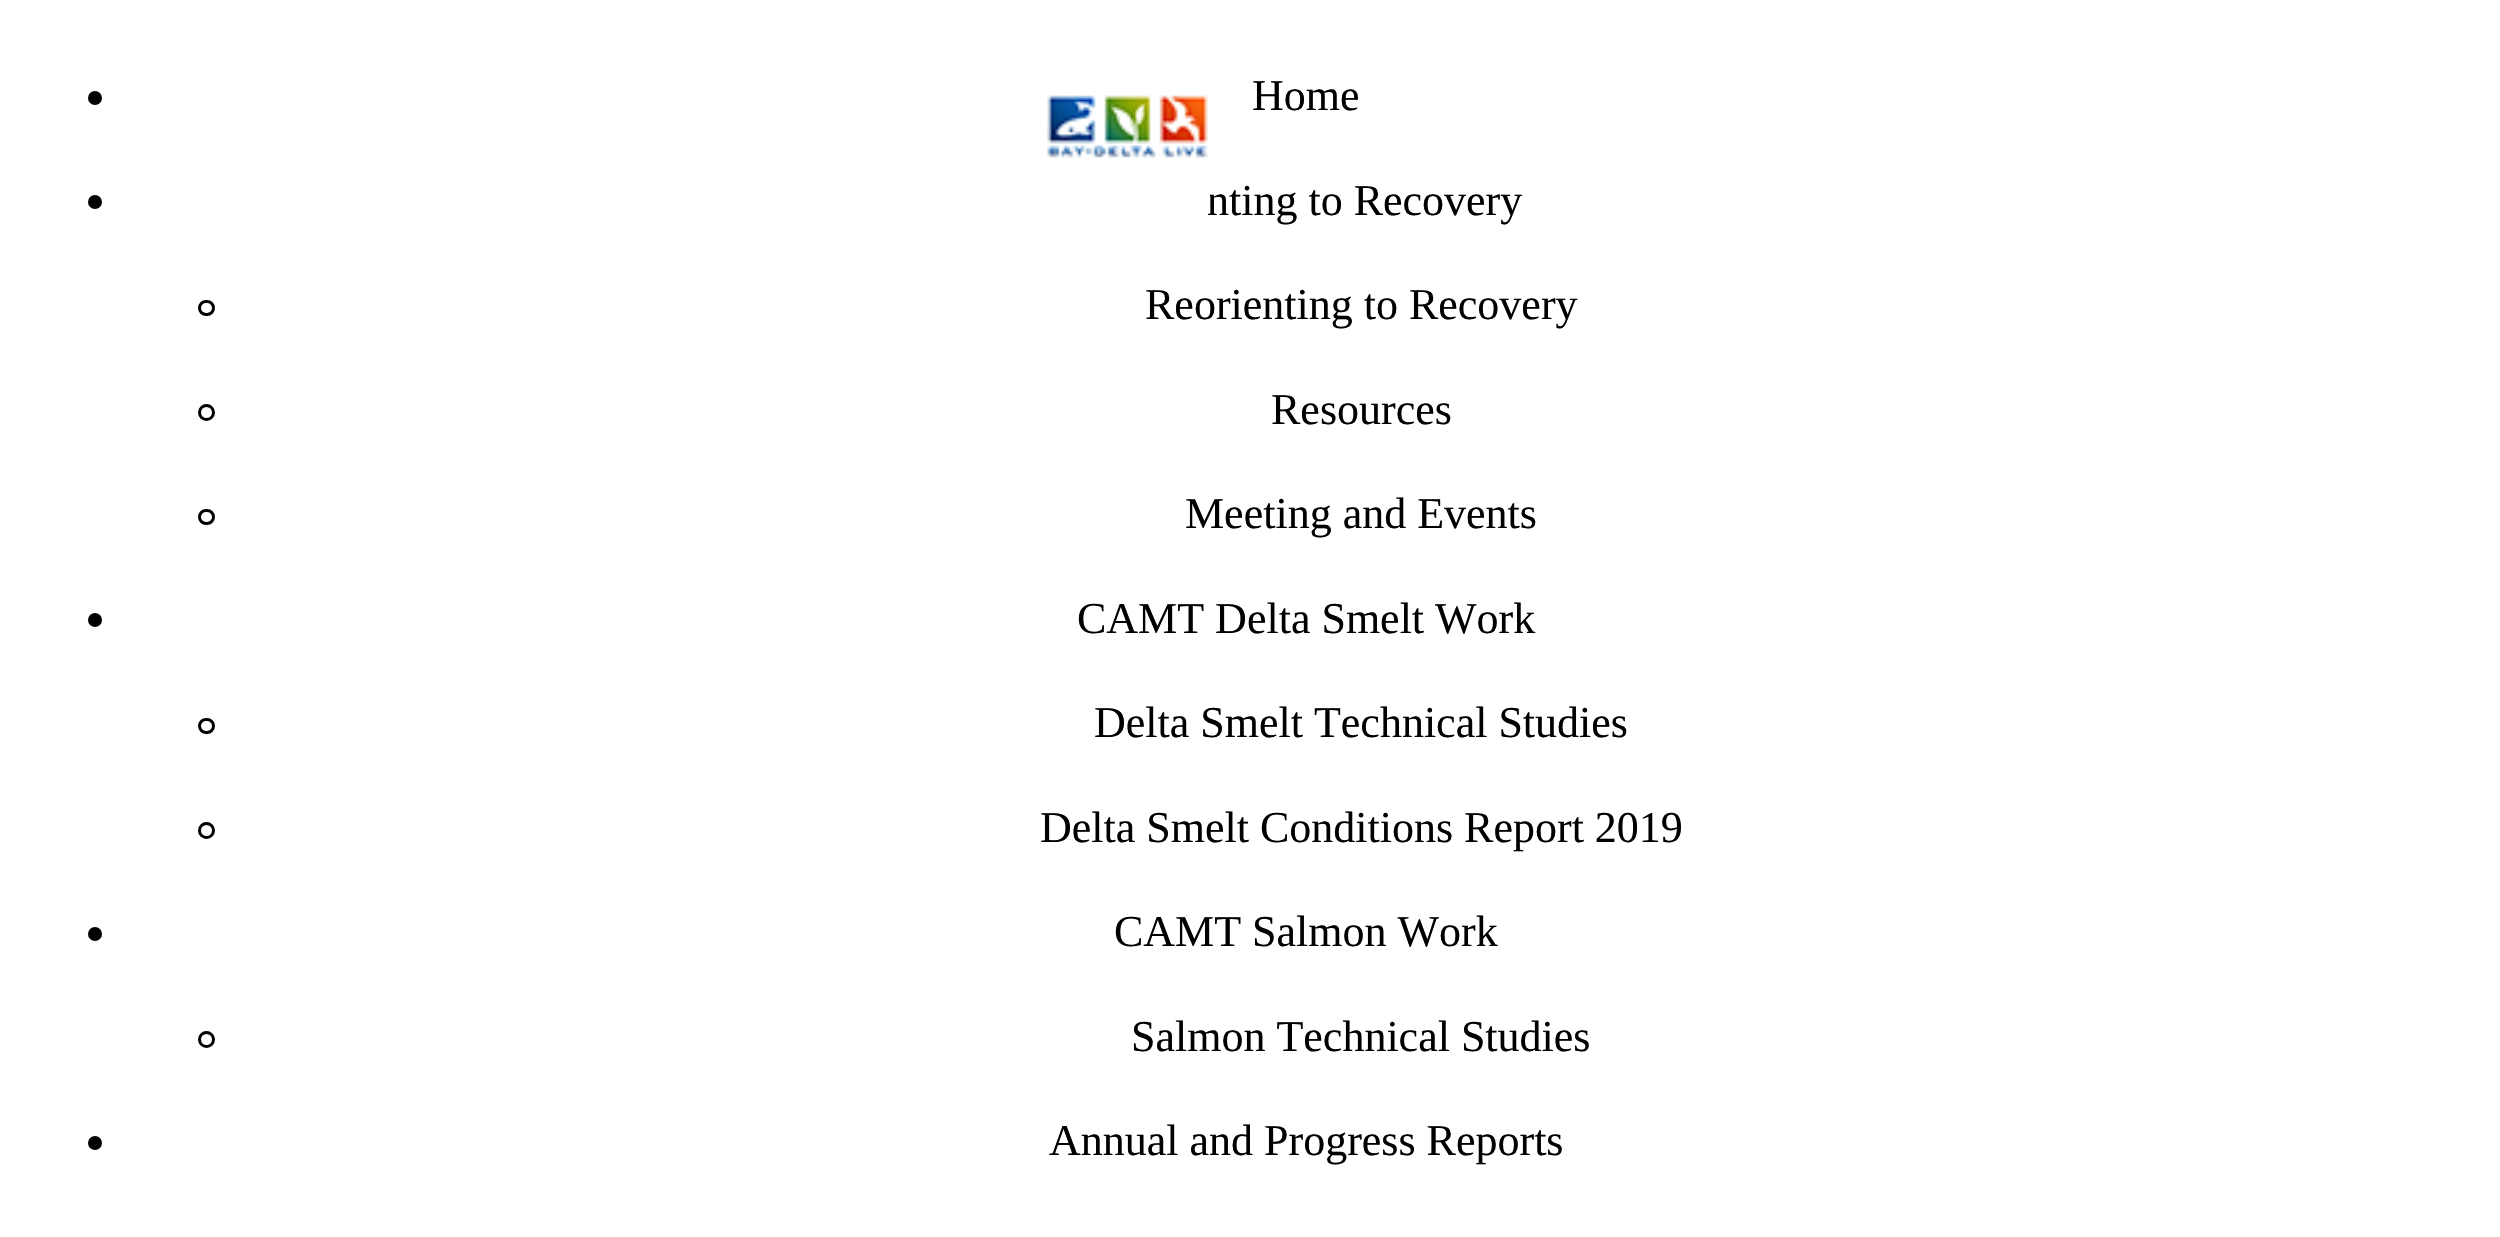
#include "include/core/SkBlurTypes.h"
#include "include/core/SkCanvas.h"
#include "include/core/SkData.h"
#include "include/core/SkFont.h"
#include "include/core/SkFontMgr.h"
#include "include/core/SkImage.h"
#include "include/core/SkMaskFilter.h"
#include "include/core/SkPaint.h"
#include "include/core/SkPathBuilder.h"
#include "include/core/SkTextBlob.h"
#include "include/effects/SkDashPathEffect.h"
#include "include/effects/SkGradientShader.h"
#include "include/utils/SkParsePath.h"

extern sk_sp<SkFontMgr> fontMgr;

static SkFont font(const char* family, int weight, float size, bool italic = false) {
    SkFontStyle style(weight, SkFontStyle::kNormal_Width,
        italic ? SkFontStyle::kItalic_Slant : SkFontStyle::kUpright_Slant);
    SkFont result(fontMgr->matchFamilyStyle(family, style), size);
    result.setSubpixel(true);
    return result;
}

static void drawLabel(SkCanvas* canvas, const char* s, float x, float y, const SkFont& font, SkColor color) {
    SkPaint ink(SkColor4f::FromColor(color));
    ink.setAntiAlias(true);
    canvas->drawString(s, x, y, font, ink);
}

static void drawPhoto(SkCanvas* canvas, const char* path, float x, float y, float w, float h) {
    auto image = SkImages::DeferredFromEncodedData(SkData::MakeFromFileName(path));
    canvas->drawImageRect(image, SkRect::MakeXYWH(x, y, w, h), SkSamplingOptions());
}

void draw(SkCanvas* canvas) {
    SkPaint paint;
    paint.setAntiAlias(true);
    canvas->clear(0xFFFFFFFF);
    paint.setColor(0xFF000000);
    canvas->drawCircle(95, 98, 7, paint);
    SkFont font1 = font("Liberation Serif", 400, 44);
    drawLabel(canvas, "Home", 1252, 110, font1, 0xFF000000);
    canvas->drawCircle(95, 202, 7, paint);
    drawLabel(canvas, "nting to Recovery", 1207, 215, font1, 0xFF000000);
    paint.setStroke(true);
    paint.setStrokeWidth(3);
    canvas->drawRoundRect(SkRect::MakeXYWH(199.5f, 301.5f, 14, 13), 6.5f, 6.5f, paint);
    drawLabel(canvas, "Reorienting to Recovery", 1145, 319, font1, 0xFF000000);
    canvas->drawCircle(206.5f, 412.5f, 7, paint);
    drawLabel(canvas, "Resources", 1271, 424, font1, 0xFF000000);
    canvas->drawRoundRect(SkRect::MakeXYWH(199.5f, 510.5f, 14, 13), 6.5f, 6.5f, paint);
    drawLabel(canvas, "Meeting and Events", 1185, 528, font1, 0xFF000000);
    paint.setStroke(false);
    canvas->drawCircle(95, 620, 7, paint);
    drawLabel(canvas, "CAMT Delta Smelt Work", 1077, 633, font1, 0xFF000000);
    paint.setStroke(true);
    canvas->drawRoundRect(SkRect::MakeXYWH(199.5f, 719.5f, 14, 13), 6.5f, 6.5f, paint);
    drawLabel(canvas, "Delta Smelt Technical Studies", 1094, 737, font1, 0xFF000000);
    canvas->drawCircle(206.5f, 830.5f, 7, paint);
    drawLabel(canvas, "Delta Smelt Conditions Report 2019", 1040, 842, font1, 0xFF000000);
    paint.setStroke(false);
    canvas->drawCircle(95, 934, 7, paint);
    drawLabel(canvas, "CAMT Salmon Work", 1114, 946, font1, 0xFF000000);
    paint.setStroke(true);
    canvas->drawCircle(206.5f, 1039.5f, 7, paint);
    drawLabel(canvas, "Salmon Technical Studies", 1131, 1051, font1, 0xFF000000);
    paint.setStroke(false);
    canvas->drawCircle(95, 1143, 7, paint);
    drawLabel(canvas, "Annual and Progress Reports", 1049, 1155, font1, 0xFF000000);
    drawPhoto(canvas, "assets/img1.png", 1047, 95, 163, 114);
}
